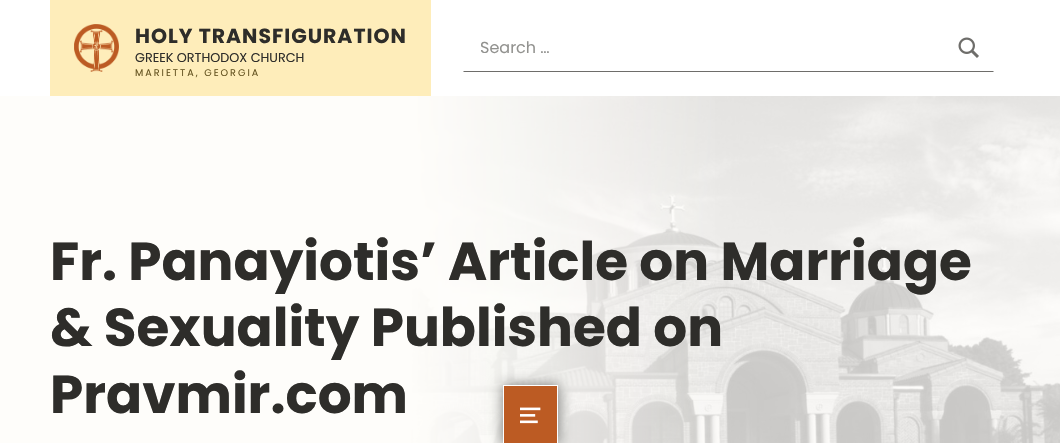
#include "include/core/SkBlurTypes.h"
#include "include/core/SkCanvas.h"
#include "include/core/SkData.h"
#include "include/core/SkFont.h"
#include "include/core/SkFontMgr.h"
#include "include/core/SkImage.h"
#include "include/core/SkMaskFilter.h"
#include "include/core/SkPaint.h"
#include "include/core/SkPathBuilder.h"
#include "include/core/SkTextBlob.h"
#include "include/effects/SkDashPathEffect.h"
#include "include/effects/SkGradientShader.h"
#include "include/utils/SkParsePath.h"

extern sk_sp<SkFontMgr> fontMgr;

static SkFont font(const char* family, int weight, float size, bool italic = false) {
    SkFontStyle style(weight, SkFontStyle::kNormal_Width,
        italic ? SkFontStyle::kItalic_Slant : SkFontStyle::kUpright_Slant);
    SkFont result(fontMgr->matchFamilyStyle(family, style), size);
    result.setSubpixel(true);
    return result;
}

static void drawLabel(SkCanvas* canvas, const char* s, float x, float y, const SkFont& font, SkColor color) {
    SkPaint ink(SkColor4f::FromColor(color));
    ink.setAntiAlias(true);
    canvas->drawString(s, x, y, font, ink);
}

static void drawTracked(SkCanvas* canvas, const char* s, float x, float y, const SkFont& font, const SkPaint& ink, float letter, float word) {
    std::vector<SkGlyphID> glyphs(font.countText(s, strlen(s), SkTextEncoding::kUTF8));
    std::vector<float> xs(glyphs.size());
    font.textToGlyphs(s, strlen(s), SkTextEncoding::kUTF8, glyphs);
    font.getXPos(glyphs, xs, x);
    float extra = 0;
    for (size_t i = 0; i < glyphs.size(); i++) {
        xs[i] += extra;
        extra += letter + word * (glyphs[i] == font.unicharToGlyph(' '));
    }
    canvas->drawTextBlob(SkTextBlob::MakeFromPosHGlyphs(glyphs, xs, y, font), 0, 0, ink);
}

static void fillRect(SkCanvas* canvas, float x, float y, float w, float h, SkColor color) {
    SkPaint ink(SkColor4f::FromColor(color));
    ink.setAntiAlias(true);
    canvas->drawRect(SkRect::MakeXYWH(x, y, w, h), ink);
}

static void drawPhoto(SkCanvas* canvas, const char* path, float x, float y, float w, float h) {
    auto image = SkImages::DeferredFromEncodedData(SkData::MakeFromFileName(path));
    canvas->drawImageRect(image, SkRect::MakeXYWH(x, y, w, h), SkSamplingOptions());
}

static SkPath parsePath(const char* data, bool evenOdd = false) {
    SkPath result = *SkParsePath::FromSVGString(data);
    if (evenOdd) result.setFillType(SkPathFillType::kEvenOdd);
    return result;
}

void draw(SkCanvas* canvas) {
    SkPaint paint;
    paint.setAntiAlias(true);
    canvas->clear(0xFFFEFDFA);
    fillRect(canvas, 0, 0, 1060, 96, 0xFFFFFFFF);
    fillRect(canvas, 50, 0, 381, 96, 0xFFFEEDBA);
    drawPhoto(canvas, "assets/img1.png", 74, 24, 45, 48);
    SkFont font1 = font("Poppins", 700, 20.4f);
    paint.setColor(0xFF2E2D2A);
    drawTracked(canvas, "HOLY TRANSFIGURATION", 135, 43, font1, paint, 1, 0);
    SkFont font2 = font("Poppins", 400, 12.75f);
    drawLabel(canvas, "GREEK ORTHODOX CHURCH", 135, 62, font2, 0xFF2E2D2A);
    SkFont font3 = font("Poppins", 400, 9.6f);
    paint.setColor(0xFF665522);
    drawTracked(canvas, "MARIETTA, GEORGIA", 135, 76, font3, paint, 2, 0);
    paint.setColor(0xFF6E6D6A);
    canvas->drawPath(parsePath("M994 72H463L464 71H993Z"), paint);
    SkFont font4 = font("Poppins", 400, 16);
    drawLabel(canvas, "Search …", 480, 53, font4, 0xFF92928F);
    drawPhoto(canvas, "assets/img2.png", 958, 37, 21, 21);
    drawPhoto(canvas, "assets/img4.png", 407, 96, 653, 347);
    {
        const SkColor colors[] = {0xFFFEFDFA, 0x00FEFDFA};
        const float stops[] = {0, 1};
        const SkPoint ends[] = {{405, 329}, {732, 329}};
        paint.setShader(SkGradientShader::MakeLinear(ends, colors, stops, 2, SkTileMode::kClamp));
        paint.setAlpha(255);
    }
    canvas->drawRect(SkRect::MakeXYWH(407, 96, 308, 347), paint);
    paint.setShader(nullptr);
    paint.setColor(0x80000000);
    paint.setMaskFilter(SkMaskFilter::MakeBlur(kNormal_SkBlurStyle, 6.5f));
    canvas->drawRect(SkRect::MakeXYWH(503, 385, 55, 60), paint);
    paint.setMaskFilter(nullptr);
    paint.setColor(0xFFBC5B23);
    canvas->drawRect(SkRect::MakeXYWH(503.5f, 385.5f, 54, 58), paint);
    paint.setStroke(true);
    paint.setStrokeWidth(1);
    paint.setColor(0xFFFFFFFF);
    canvas->drawRect(SkRect::MakeXYWH(503.5f, 385.5f, 54, 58), paint);
    drawPhoto(canvas, "assets/img3.png", 520, 407, 21, 17);
    SkFont font5 = font("Poppins", 700, 53.25f);
    drawLabel(canvas, "Fr. Panayiotis’ Article on Marriage", 50, 280, font5, 0xFF2E2D2A);
    drawLabel(canvas, "& Sexuality Published on", 50, 346, font5, 0xFF2E2D2A);
    drawLabel(canvas, "Pravmir.com", 50, 413, font5, 0xFF2E2D2A);
}
